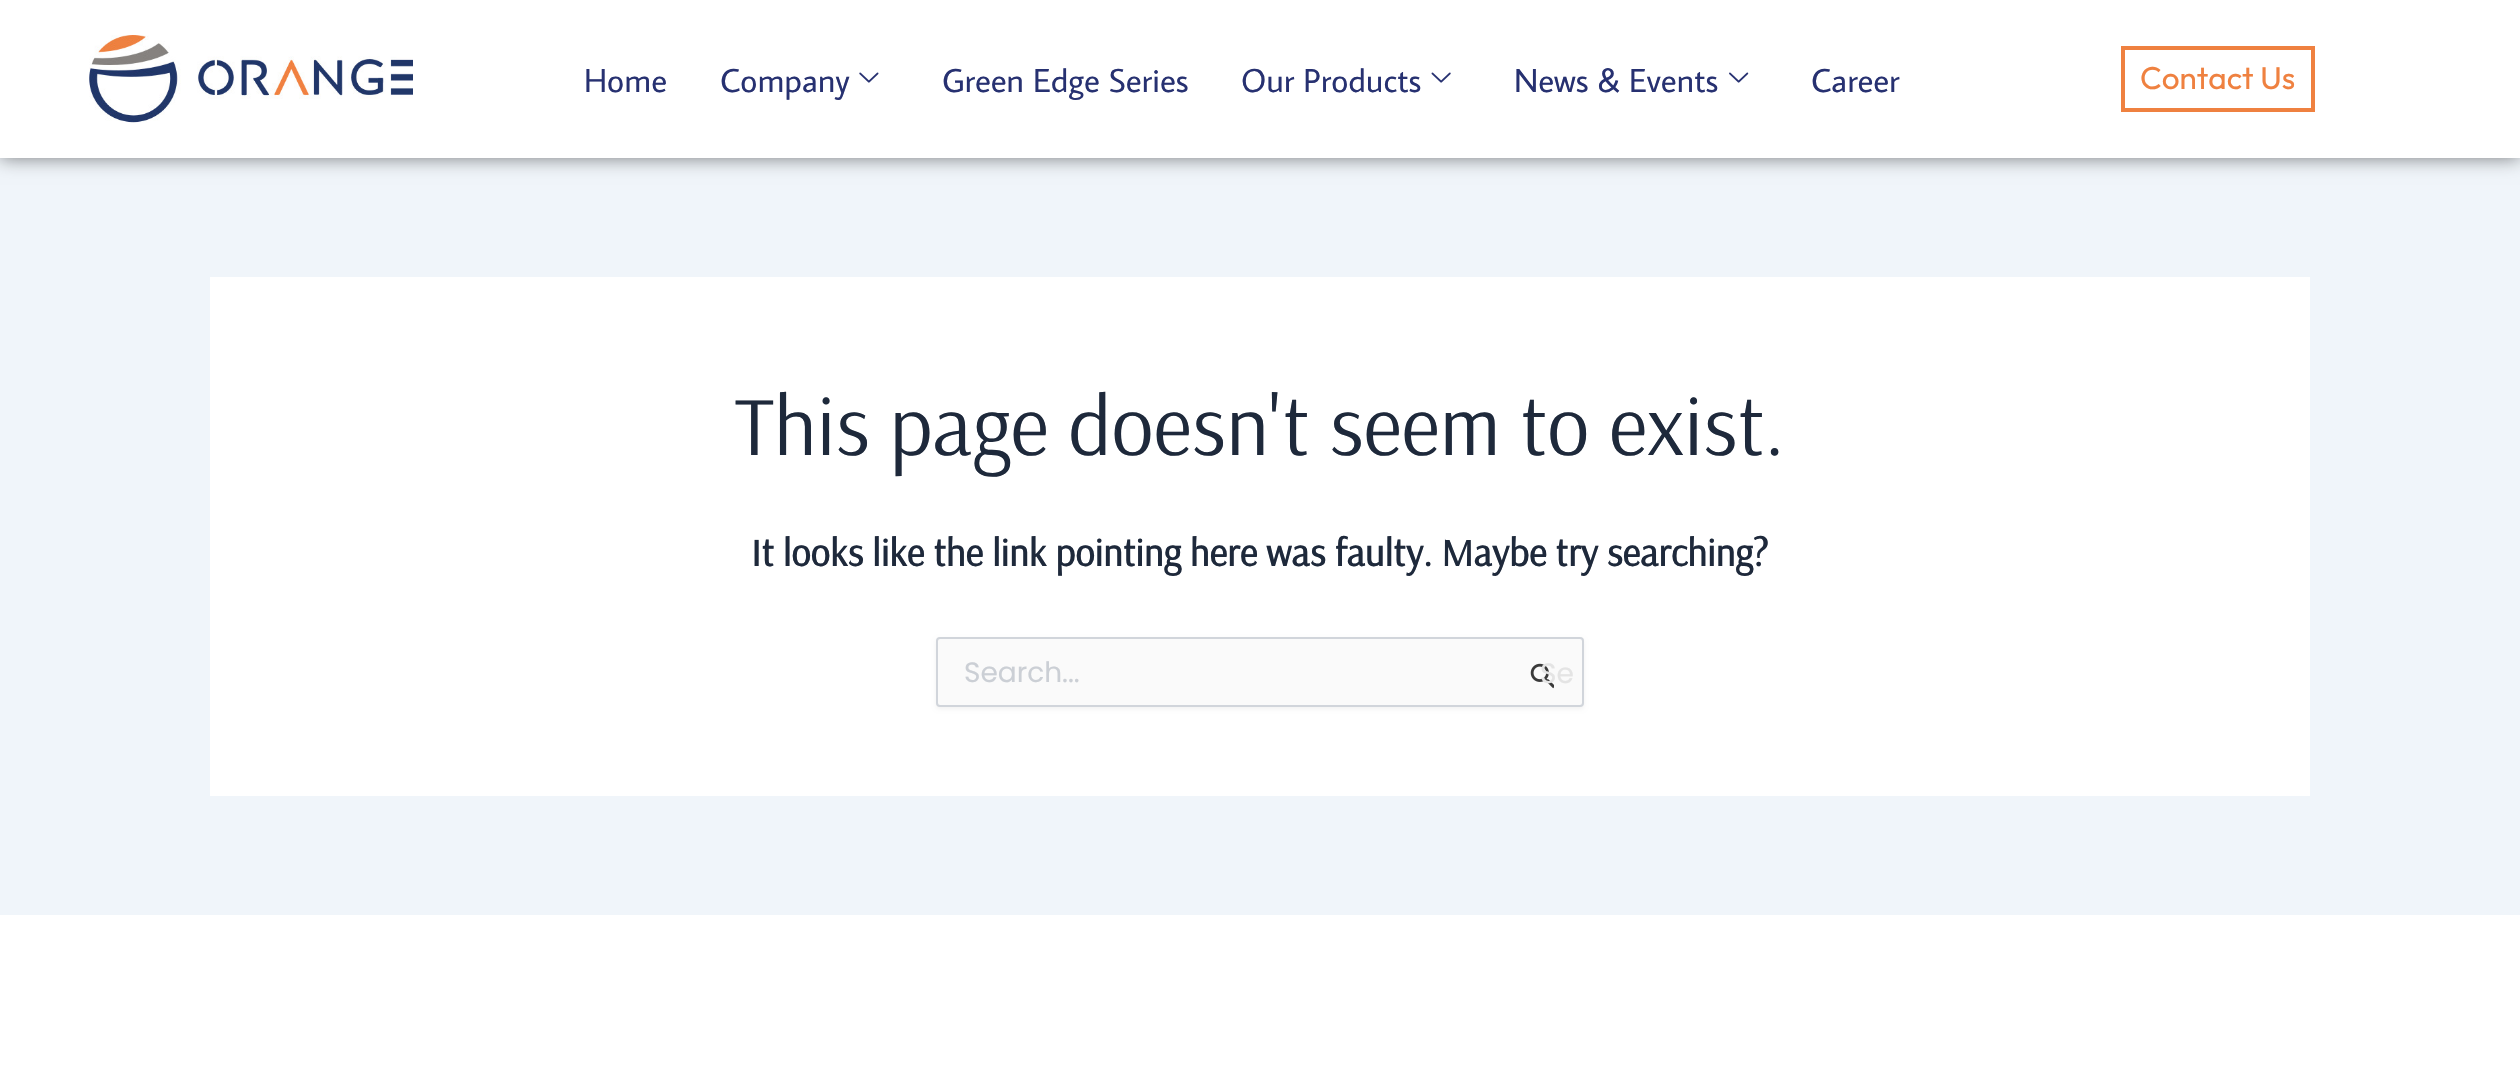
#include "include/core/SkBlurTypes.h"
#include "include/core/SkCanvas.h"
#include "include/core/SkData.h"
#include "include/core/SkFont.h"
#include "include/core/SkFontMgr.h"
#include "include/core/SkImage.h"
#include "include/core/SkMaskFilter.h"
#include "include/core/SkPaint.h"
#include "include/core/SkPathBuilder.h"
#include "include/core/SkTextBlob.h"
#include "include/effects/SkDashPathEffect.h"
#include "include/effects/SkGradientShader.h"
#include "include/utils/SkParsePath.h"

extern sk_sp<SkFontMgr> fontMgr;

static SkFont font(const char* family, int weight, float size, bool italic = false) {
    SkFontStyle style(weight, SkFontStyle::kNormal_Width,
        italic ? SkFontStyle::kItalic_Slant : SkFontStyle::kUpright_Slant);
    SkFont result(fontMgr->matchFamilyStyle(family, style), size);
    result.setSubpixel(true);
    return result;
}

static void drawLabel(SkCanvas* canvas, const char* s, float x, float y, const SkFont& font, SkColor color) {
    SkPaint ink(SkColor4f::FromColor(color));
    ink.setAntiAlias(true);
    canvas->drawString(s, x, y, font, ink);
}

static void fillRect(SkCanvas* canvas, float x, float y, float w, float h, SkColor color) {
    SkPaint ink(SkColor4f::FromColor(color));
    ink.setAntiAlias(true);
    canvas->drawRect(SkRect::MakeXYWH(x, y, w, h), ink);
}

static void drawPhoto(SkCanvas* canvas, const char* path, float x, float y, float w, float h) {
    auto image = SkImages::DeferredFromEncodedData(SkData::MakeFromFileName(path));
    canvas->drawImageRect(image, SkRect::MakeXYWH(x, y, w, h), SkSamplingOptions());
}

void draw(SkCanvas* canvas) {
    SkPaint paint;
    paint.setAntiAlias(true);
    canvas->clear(0xFFF0F5FA);
    paint.setColor(0x80000000);
    paint.setMaskFilter(SkMaskFilter::MakeBlur(kNormal_SkBlurStyle, 9));
    canvas->drawRect(SkRect::MakeXYWH(0, 0, 2520, 158), paint);
    paint.setMaskFilter(nullptr);
    fillRect(canvas, 0, 0, 2520, 158, 0xFFFFFFFF);
    drawPhoto(canvas, "assets/img1.png", 89, 35, 324, 88);
    SkFont font1 = font("Average Sans", 400, 33.25f);
    drawLabel(canvas, "Home", 584, 92, font1, 0xFF273171);
    drawLabel(canvas, "Company", 720, 92, font1, 0xFF273171);
    drawPhoto(canvas, "assets/img2.png", 859, 72, 20, 11);
    drawLabel(canvas, "Green Edge Series", 942, 92, font1, 0xFF273171);
    drawLabel(canvas, "Our Products", 1241, 92, font1, 0xFF273171);
    drawPhoto(canvas, "assets/img3.png", 1431, 72, 20, 11);
    drawLabel(canvas, "News & Events", 1514, 92, font1, 0xFF273171);
    drawPhoto(canvas, "assets/img4.png", 1729, 72, 20, 11);
    drawLabel(canvas, "Career", 1811, 92, font1, 0xFF273171);
    paint.setStroke(true);
    paint.setStrokeWidth(4);
    paint.setColor(0xFFEF8140);
    canvas->drawRect(SkRect::MakeXYWH(2123, 48, 190, 62), paint);
    SkFont font2 = font("Outfit", 400, 31.5f);
    drawLabel(canvas, "Contact Us", 2140, 89, font2, 0xFFEF8140);
    fillRect(canvas, 210, 277, 2100, 519, 0xFFFFFFFF);
    SkFont font3 = font("Arsenal", 400, 84);
    drawLabel(canvas, "This page doesn't seem to exist.", 735, 455, font3, 0xFF1E293B);
    SkFont font4 = font("Arsenal", 700, 38.5f);
    drawLabel(canvas, "It looks like the link pointing here was faulty. Maybe try searching?", 751, 566, font4, 0xFF1E293B);
    paint.setStroke(false);
    paint.setColor(0x0D000000);
    paint.setMaskFilter(SkMaskFilter::MakeBlur(kNormal_SkBlurStyle, 2));
    canvas->drawRoundRect(SkRect::MakeXYWH(936, 639, 648, 70), 4, 4, paint);
    paint.setMaskFilter(nullptr);
    paint.setColor(0xFFFAFAFA);
    canvas->drawRoundRect(SkRect::MakeXYWH(937, 638, 646, 68), 3, 3, paint);
    paint.setStroke(true);
    paint.setStrokeWidth(2);
    paint.setColor(0xFFD1D5DB);
    canvas->drawRoundRect(SkRect::MakeXYWH(937, 638, 646, 68), 3, 3, paint);
    SkFont font5 = font("Poppins", 400, 28);
    drawLabel(canvas, "Search...", 964, 682, font5, 0xFFCBCFD5);
    drawPhoto(canvas, "assets/img5.png", 1530, 663, 24, 26);
    drawLabel(canvas, "Se", 1540, 683, font5, 0xFFE4E4E4);
    fillRect(canvas, 0, 915, 2520, 156, 0xFFFFFFFF);
}
